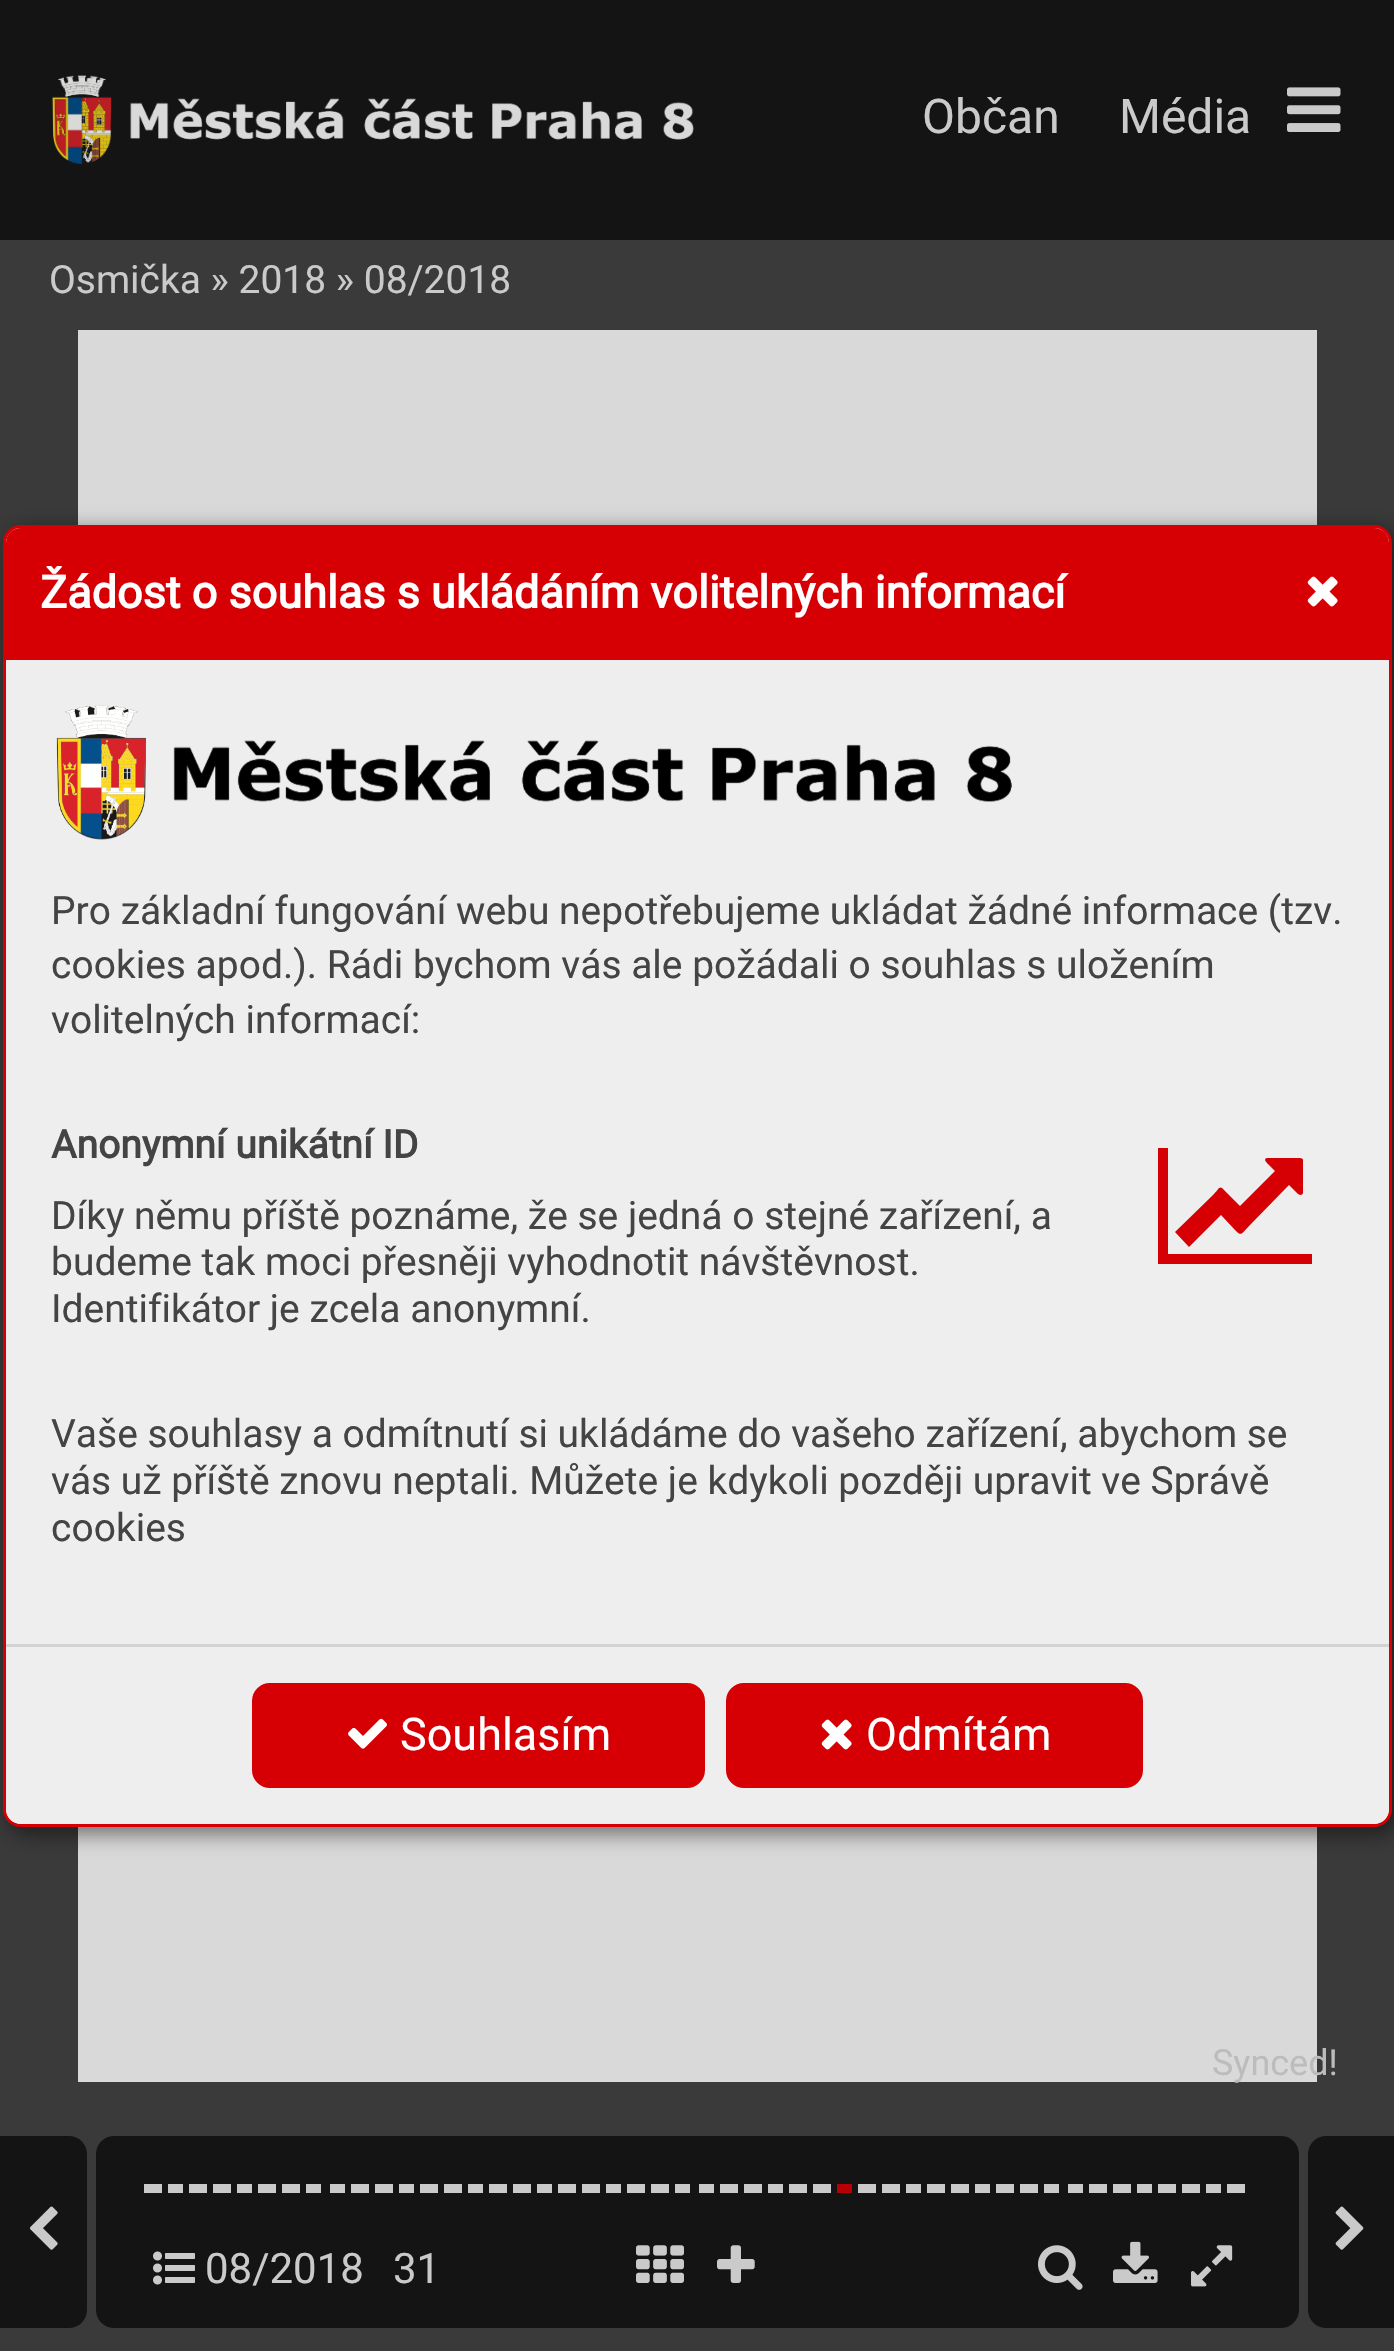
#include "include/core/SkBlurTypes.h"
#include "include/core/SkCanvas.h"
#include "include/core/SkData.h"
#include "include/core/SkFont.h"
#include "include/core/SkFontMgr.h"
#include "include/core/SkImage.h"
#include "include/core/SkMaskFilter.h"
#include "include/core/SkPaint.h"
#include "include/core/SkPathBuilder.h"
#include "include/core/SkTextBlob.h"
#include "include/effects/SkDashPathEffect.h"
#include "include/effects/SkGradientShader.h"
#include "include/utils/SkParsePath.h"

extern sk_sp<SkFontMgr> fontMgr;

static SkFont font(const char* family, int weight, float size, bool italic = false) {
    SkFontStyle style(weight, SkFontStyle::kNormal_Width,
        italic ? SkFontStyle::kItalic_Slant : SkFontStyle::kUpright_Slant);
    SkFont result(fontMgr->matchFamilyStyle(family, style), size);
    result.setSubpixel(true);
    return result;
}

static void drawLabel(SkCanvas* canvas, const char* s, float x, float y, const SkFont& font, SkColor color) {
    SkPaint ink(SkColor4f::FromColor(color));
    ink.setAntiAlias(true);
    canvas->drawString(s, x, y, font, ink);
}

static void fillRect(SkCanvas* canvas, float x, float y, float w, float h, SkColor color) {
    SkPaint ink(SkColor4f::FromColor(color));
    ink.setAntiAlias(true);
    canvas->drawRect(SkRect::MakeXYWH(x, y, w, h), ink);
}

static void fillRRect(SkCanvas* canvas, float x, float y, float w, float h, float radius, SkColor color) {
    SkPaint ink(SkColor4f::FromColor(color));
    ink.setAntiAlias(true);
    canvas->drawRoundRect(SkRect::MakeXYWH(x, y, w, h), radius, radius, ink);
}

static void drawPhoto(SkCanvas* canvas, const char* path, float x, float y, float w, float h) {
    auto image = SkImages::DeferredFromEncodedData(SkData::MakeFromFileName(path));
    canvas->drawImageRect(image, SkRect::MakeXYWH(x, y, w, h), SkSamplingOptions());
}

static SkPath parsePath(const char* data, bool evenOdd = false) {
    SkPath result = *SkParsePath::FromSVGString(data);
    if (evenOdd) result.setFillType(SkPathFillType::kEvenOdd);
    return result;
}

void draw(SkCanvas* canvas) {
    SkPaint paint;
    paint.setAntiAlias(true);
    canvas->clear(0xFF3A3A3A);
    fillRect(canvas, 0, 0, 1394, 240, 0xFF141414);
    drawPhoto(canvas, "assets/img1.png", 52, 75, 642, 89);
    SkFont font1 = font("Roboto", 400, 48);
    drawLabel(canvas, "Občan", 922, 133, font1, 0xFFCACACA);
    drawLabel(canvas, "Média", 1119, 133, font1, 0xFFCACACA);
    drawPhoto(canvas, "assets/img2.png", 1287, 87, 54, 45);
    SkFont font2 = font("Roboto", 400, 39);
    drawLabel(canvas, "Osmička » 2018 » 08/2018", 49, 293, font2, 0xFFCACACA);
    paint.setColor(0xFF141414);
    canvas->drawPath(parsePath("M0 2136H69C79 2136 87 2144 87 2154V2310C87 2320 79 2328 69 2328H0Z"), paint);
    drawPhoto(canvas, "assets/img3.png", 29, 2206, 29, 44);
    fillRRect(canvas, 96, 2136, 1203, 192, 18, 0xFF141414);
    fillRect(canvas, 144, 2184, 18, 9, 0xFFCACACA);
    fillRect(canvas, 168, 2184, 15, 9, 0xFFCACACA);
    fillRect(canvas, 189, 2184, 18, 9, 0xFFCACACA);
    fillRect(canvas, 213, 2184, 18, 9, 0xFFCACACA);
    fillRect(canvas, 237, 2184, 15, 9, 0xFFCACACA);
    fillRect(canvas, 258, 2184, 18, 9, 0xFFCACACA);
    fillRect(canvas, 282, 2184, 18, 9, 0xFFCACACA);
    fillRect(canvas, 306, 2184, 15, 9, 0xFFCACACA);
    fillRect(canvas, 330, 2184, 15, 9, 0xFFCACACA);
    fillRect(canvas, 351, 2184, 18, 9, 0xFFCACACA);
    fillRect(canvas, 375, 2184, 18, 9, 0xFFCACACA);
    fillRect(canvas, 399, 2184, 15, 9, 0xFFCACACA);
    fillRect(canvas, 420, 2184, 18, 9, 0xFFCACACA);
    fillRect(canvas, 444, 2184, 18, 9, 0xFFCACACA);
    fillRect(canvas, 468, 2184, 15, 9, 0xFFCACACA);
    fillRect(canvas, 489, 2184, 18, 9, 0xFFCACACA);
    fillRect(canvas, 513, 2184, 18, 9, 0xFFCACACA);
    fillRect(canvas, 537, 2184, 15, 9, 0xFFCACACA);
    fillRect(canvas, 558, 2184, 18, 9, 0xFFCACACA);
    fillRect(canvas, 582, 2184, 18, 9, 0xFFCACACA);
    fillRect(canvas, 606, 2184, 15, 9, 0xFFCACACA);
    fillRect(canvas, 627, 2184, 18, 9, 0xFFCACACA);
    fillRect(canvas, 651, 2184, 18, 9, 0xFFCACACA);
    fillRect(canvas, 675, 2184, 15, 9, 0xFFCACACA);
    fillRect(canvas, 699, 2184, 15, 9, 0xFFCACACA);
    fillRect(canvas, 720, 2184, 18, 9, 0xFFCACACA);
    fillRect(canvas, 744, 2184, 18, 9, 0xFFCACACA);
    fillRect(canvas, 768, 2184, 15, 9, 0xFFCACACA);
    fillRect(canvas, 789, 2184, 18, 9, 0xFFCACACA);
    fillRect(canvas, 813, 2184, 18, 9, 0xFFCACACA);
    fillRect(canvas, 858, 2184, 18, 9, 0xFFCACACA);
    fillRect(canvas, 882, 2184, 18, 9, 0xFFCACACA);
    fillRect(canvas, 906, 2184, 15, 9, 0xFFCACACA);
    fillRect(canvas, 927, 2184, 18, 9, 0xFFCACACA);
    fillRect(canvas, 951, 2184, 18, 9, 0xFFCACACA);
    fillRect(canvas, 975, 2184, 15, 9, 0xFFCACACA);
    fillRect(canvas, 996, 2184, 18, 9, 0xFFCACACA);
    fillRect(canvas, 1020, 2184, 18, 9, 0xFFCACACA);
    fillRect(canvas, 1044, 2184, 15, 9, 0xFFCACACA);
    fillRect(canvas, 1068, 2184, 15, 9, 0xFFCACACA);
    fillRect(canvas, 1089, 2184, 18, 9, 0xFFCACACA);
    fillRect(canvas, 1113, 2184, 18, 9, 0xFFCACACA);
    fillRect(canvas, 1137, 2184, 15, 9, 0xFFCACACA);
    fillRect(canvas, 1158, 2184, 18, 9, 0xFFCACACA);
    fillRect(canvas, 1182, 2184, 18, 9, 0xFFCACACA);
    fillRect(canvas, 1206, 2184, 15, 9, 0xFFCACACA);
    fillRect(canvas, 1227, 2184, 18, 9, 0xFFCACACA);
    fillRect(canvas, 837, 2184, 15, 9, 0xFFB60003);
    drawPhoto(canvas, "assets/img4.png", 153, 2251, 42, 34);
    SkFont font3 = font("Roboto", 400, 42);
    drawLabel(canvas, "08/2018", 205, 2283, font3, 0xFFCACACA);
    drawLabel(canvas, "31", 393, 2283, font3, 0xFFCACACA);
    drawPhoto(canvas, "assets/img5.png", 636, 2245, 48, 38);
    drawPhoto(canvas, "assets/img6.png", 717, 2245, 38, 38);
    drawPhoto(canvas, "assets/img7.png", 1038, 2245, 45, 45);
    drawPhoto(canvas, "assets/img8.png", 1113, 2241, 45, 42);
    drawPhoto(canvas, "assets/img9.png", 1191, 2245, 42, 42);
    canvas->drawPath(parsePath("M1326 2136H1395V2328H1326C1316 2328 1308 2320 1308 2310V2154C1308 2144 1316 2136 1326 2136Z"), paint);
    drawPhoto(canvas, "assets/img10.png", 1335, 2206, 29, 44);
    fillRect(canvas, 78, 330, 1239, 1752, 0xFFD9D9D9);
    paint.setColor(0x87000000);
    paint.setMaskFilter(SkMaskFilter::MakeBlur(kNormal_SkBlurStyle, 11));
    canvas->drawRoundRect(SkRect::MakeXYWH(9, 531, 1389, 1302), 18, 18, paint);
    paint.setMaskFilter(nullptr);
    paint.setColor(0xFFEEEEEE);
    canvas->drawRoundRect(SkRect::MakeXYWH(4.5f, 526.5f, 1386, 1299), 16.5f, 16.5f, paint);
    paint.setStroke(true);
    paint.setStrokeWidth(3);
    paint.setColor(0xFFD60004);
    canvas->drawRoundRect(SkRect::MakeXYWH(4.5f, 526.5f, 1386, 1299), 16.5f, 16.5f, paint);
    paint.setStroke(false);
    canvas->drawPath(parsePath("M21 528H1374C1382.5 528 1389 534.5 1389 543V660H6V543C6 534.5 12.5 528 21 528Z"), paint);
    SkFont font4 = font("Roboto", 700, 45);
    drawLabel(canvas, "Žádost o souhlas s ukládáním volitelných informací", 40, 608, font4, 0xFFFFFFFF);
    drawPhoto(canvas, "assets/img11.png", 1307, 576, 31, 31);
    drawPhoto(canvas, "assets/img12.png", 56, 705, 956, 135);
    drawLabel(canvas, "Pro základní fungování webu nepotřebujeme ukládat žádné informace (tzv.", 51, 924, font2, 0xFF444444);
    drawLabel(canvas, "cookies apod.). Rádi bychom vás ale požádali o souhlas s uložením", 51, 978, font2, 0xFF444444);
    drawLabel(canvas, "volitelných informací:", 51, 1033, font2, 0xFF444444);
    SkFont font5 = font("Roboto", 700, 39);
    drawLabel(canvas, "Anonymní unikátní ID", 51, 1158, font5, 0xFF444444);
    canvas->drawPath(parsePath("M1312 1254V1264H1158V1148H1168V1254ZM1303 1160V1193C1301 1198 1296 1192 1295 1191L1289 1185L1250 1225C1241 1234 1242 1237 1235 1230L1221 1215L1189 1247L1175 1232L1212 1196C1220 1188 1219 1184 1225 1191L1240 1206L1275 1171L1269 1165C1268 1164 1262 1159 1267 1158H1300C1302 1158 1303 1159 1303 1160Z"), paint);
    drawLabel(canvas, "Díky němu příště poznáme, že se jedná o stejné zařízení, a", 51, 1229, font2, 0xFF444444);
    drawLabel(canvas, "budeme tak moci přesněji vyhodnotit návštěvnost.", 51, 1275, font2, 0xFF444444);
    drawLabel(canvas, "Identifikátor je zcela anonymní.", 51, 1322, font2, 0xFF444444);
    drawLabel(canvas, "Vaše souhlasy a odmítnutí si ukládáme do vašeho zařízení, abychom se", 51, 1447, font2, 0xFF444444);
    drawLabel(canvas, "vás už příště znovu neptali. Můžete je kdykoli později upravit ve Správě", 51, 1494, font2, 0xFF444444);
    drawLabel(canvas, "cookies", 51, 1541, font2, 0xFF444444);
    paint.setColor(0xFFEEEEEE);
    canvas->drawPath(parsePath("M6 1644H1389V1809C1389 1817.5 1382.5 1824 1374 1824H21C12.5 1824 6 1817.5 6 1809Z"), paint);
    fillRect(canvas, 6, 1644, 1383, 3, 0xFFD3D3D3);
    paint.setColor(0xFFD60004);
    canvas->drawRoundRect(SkRect::MakeXYWH(253.5f, 1684.5f, 450, 102), 16.5f, 16.5f, paint);
    paint.setStroke(true);
    canvas->drawRoundRect(SkRect::MakeXYWH(253.5f, 1684.5f, 450, 102), 16.5f, 16.5f, paint);
    drawPhoto(canvas, "assets/img13.png", 348, 1718, 39, 31);
    SkFont font6 = font("Roboto", 400, 45);
    drawLabel(canvas, "Souhlasím", 400, 1750, font6, 0xFFFFFFFF);
    paint.setStroke(false);
    canvas->drawRoundRect(SkRect::MakeXYWH(727.5f, 1684.5f, 414, 102), 16.5f, 16.5f, paint);
    paint.setStroke(true);
    canvas->drawRoundRect(SkRect::MakeXYWH(727.5f, 1684.5f, 414, 102), 16.5f, 16.5f, paint);
    drawPhoto(canvas, "assets/img11.png", 821, 1719, 31, 31);
    drawLabel(canvas, "Odmítám", 866, 1750, font6, 0xFFFFFFFF);
    SkFont font7 = font("Roboto", 400, 36);
    drawLabel(canvas, "Synced!", 1212, 2075, font7, 0xFFBCBCBC);
}
